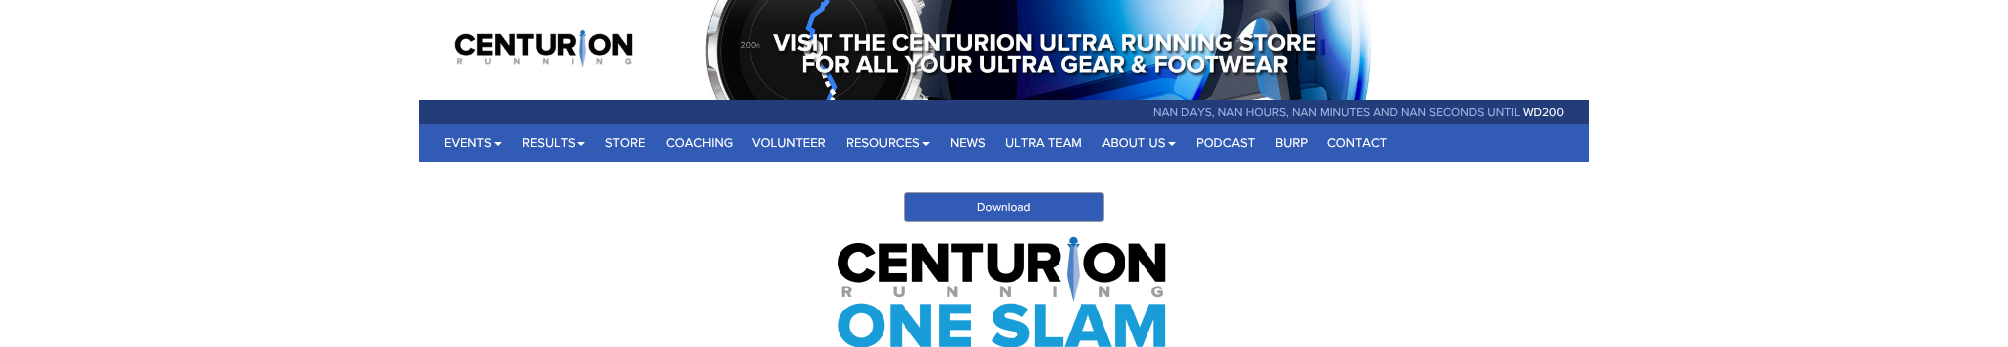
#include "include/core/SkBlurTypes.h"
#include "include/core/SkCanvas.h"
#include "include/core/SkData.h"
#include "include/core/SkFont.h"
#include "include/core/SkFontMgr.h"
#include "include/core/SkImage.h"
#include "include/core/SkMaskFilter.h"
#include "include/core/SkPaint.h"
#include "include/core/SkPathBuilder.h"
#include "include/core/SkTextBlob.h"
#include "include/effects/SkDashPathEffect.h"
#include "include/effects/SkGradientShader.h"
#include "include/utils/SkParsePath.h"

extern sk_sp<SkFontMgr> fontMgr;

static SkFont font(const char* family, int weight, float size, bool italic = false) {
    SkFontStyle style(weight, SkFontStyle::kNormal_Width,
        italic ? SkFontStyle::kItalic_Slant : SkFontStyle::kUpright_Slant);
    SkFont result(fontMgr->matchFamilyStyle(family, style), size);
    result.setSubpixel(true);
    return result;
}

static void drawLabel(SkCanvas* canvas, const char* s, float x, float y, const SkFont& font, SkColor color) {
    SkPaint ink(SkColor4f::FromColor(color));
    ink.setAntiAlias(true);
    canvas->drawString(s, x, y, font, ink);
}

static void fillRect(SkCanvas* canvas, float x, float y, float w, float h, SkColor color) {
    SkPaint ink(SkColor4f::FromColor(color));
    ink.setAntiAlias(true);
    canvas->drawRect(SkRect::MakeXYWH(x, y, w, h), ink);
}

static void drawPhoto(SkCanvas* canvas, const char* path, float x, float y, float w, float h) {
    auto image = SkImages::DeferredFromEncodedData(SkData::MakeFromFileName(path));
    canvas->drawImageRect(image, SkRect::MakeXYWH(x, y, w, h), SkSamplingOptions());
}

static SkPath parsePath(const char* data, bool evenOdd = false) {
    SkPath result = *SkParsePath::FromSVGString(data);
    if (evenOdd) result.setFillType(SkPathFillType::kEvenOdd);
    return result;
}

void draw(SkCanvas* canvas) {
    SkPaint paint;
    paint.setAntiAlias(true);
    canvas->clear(0xFFFFFFFF);
    drawPhoto(canvas, "assets/img1.png", 454, 29, 179, 38);
    drawPhoto(canvas, "assets/img2.png", 705, 0, 669, 100);
    fillRect(canvas, 419, 100, 1170, 24, 0xFF223D7A);
    SkFont font1 = font("Proxima Nova", 400, 12);
    drawLabel(canvas, "NAN DAYS, NAN HOURS, NAN MINUTES AND NAN SECONDS UNTIL", 1153, 116, font1, 0xFF9DB3E4);
    drawLabel(canvas, "WD200", 1523, 116, font1, 0xFFFFFFFF);
    fillRect(canvas, 419, 124, 1170, 38, 0xFF325BB6);
    SkFont font2 = font("Proxima Nova", 400, 13);
    drawLabel(canvas, "EVENTS", 444, 147, font2, 0xFFFFFFFF);
    paint.setColor(0xFFFFFFFF);
    canvas->drawPath(parsePath("M494 142H502L498 146Z"), paint);
    drawLabel(canvas, "RESULTS", 522, 147, font2, 0xFFFFFFFF);
    canvas->drawPath(parsePath("M577 142H585L581 146Z"), paint);
    drawLabel(canvas, "STORE", 605, 147, font2, 0xFFFFFFFF);
    drawLabel(canvas, "COACHING", 666, 147, font2, 0xFFFFFFFF);
    drawLabel(canvas, "VOLUNTEER", 752, 147, font2, 0xFFFFFFFF);
    drawLabel(canvas, "RESOURCES", 846, 147, font2, 0xFFFFFFFF);
    canvas->drawPath(parsePath("M922 142H930L926 146Z"), paint);
    drawLabel(canvas, "NEWS", 950, 147, font2, 0xFFFFFFFF);
    drawLabel(canvas, "ULTRA TEAM", 1005, 147, font2, 0xFFFFFFFF);
    drawLabel(canvas, "ABOUT US", 1102, 147, font2, 0xFFFFFFFF);
    canvas->drawPath(parsePath("M1168 142H1176L1172 146Z"), paint);
    drawLabel(canvas, "PODCAST", 1196, 147, font2, 0xFFFFFFFF);
    drawLabel(canvas, "BURP", 1275, 147, font2, 0xFFFFFFFF);
    drawLabel(canvas, "CONTACT", 1327, 147, font2, 0xFFFFFFFF);
    paint.setColor(0xFF325BB6);
    canvas->drawRoundRect(SkRect::MakeXYWH(904.5f, 192.5f, 199, 29), 2.5f, 2.5f, paint);
    paint.setStroke(true);
    paint.setStrokeWidth(1);
    paint.setColor(0xFF9D9D9C);
    canvas->drawRoundRect(SkRect::MakeXYWH(904.5f, 192.5f, 199, 29), 2.5f, 2.5f, paint);
    drawLabel(canvas, "Download", 977, 211, font1, 0xFFFFFFFF);
    drawPhoto(canvas, "assets/img3.png", 838, 236, 328, 111);
}
